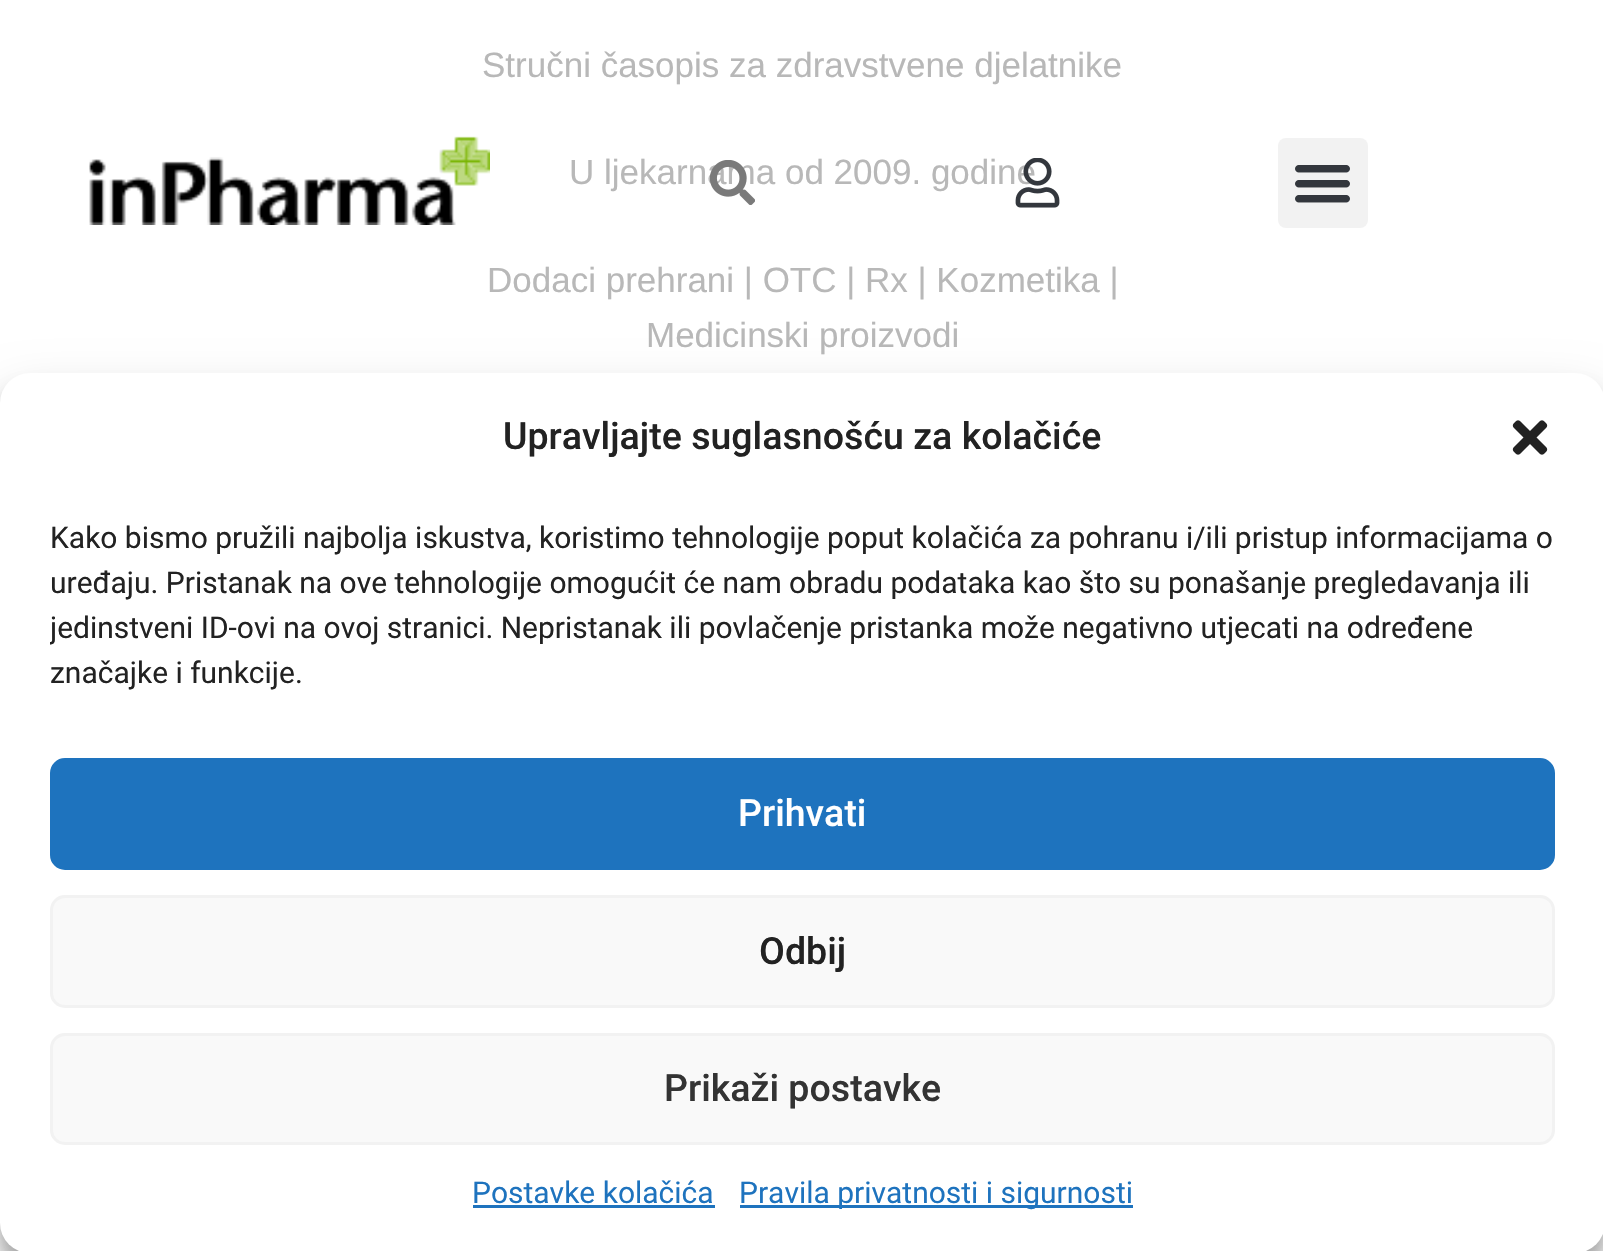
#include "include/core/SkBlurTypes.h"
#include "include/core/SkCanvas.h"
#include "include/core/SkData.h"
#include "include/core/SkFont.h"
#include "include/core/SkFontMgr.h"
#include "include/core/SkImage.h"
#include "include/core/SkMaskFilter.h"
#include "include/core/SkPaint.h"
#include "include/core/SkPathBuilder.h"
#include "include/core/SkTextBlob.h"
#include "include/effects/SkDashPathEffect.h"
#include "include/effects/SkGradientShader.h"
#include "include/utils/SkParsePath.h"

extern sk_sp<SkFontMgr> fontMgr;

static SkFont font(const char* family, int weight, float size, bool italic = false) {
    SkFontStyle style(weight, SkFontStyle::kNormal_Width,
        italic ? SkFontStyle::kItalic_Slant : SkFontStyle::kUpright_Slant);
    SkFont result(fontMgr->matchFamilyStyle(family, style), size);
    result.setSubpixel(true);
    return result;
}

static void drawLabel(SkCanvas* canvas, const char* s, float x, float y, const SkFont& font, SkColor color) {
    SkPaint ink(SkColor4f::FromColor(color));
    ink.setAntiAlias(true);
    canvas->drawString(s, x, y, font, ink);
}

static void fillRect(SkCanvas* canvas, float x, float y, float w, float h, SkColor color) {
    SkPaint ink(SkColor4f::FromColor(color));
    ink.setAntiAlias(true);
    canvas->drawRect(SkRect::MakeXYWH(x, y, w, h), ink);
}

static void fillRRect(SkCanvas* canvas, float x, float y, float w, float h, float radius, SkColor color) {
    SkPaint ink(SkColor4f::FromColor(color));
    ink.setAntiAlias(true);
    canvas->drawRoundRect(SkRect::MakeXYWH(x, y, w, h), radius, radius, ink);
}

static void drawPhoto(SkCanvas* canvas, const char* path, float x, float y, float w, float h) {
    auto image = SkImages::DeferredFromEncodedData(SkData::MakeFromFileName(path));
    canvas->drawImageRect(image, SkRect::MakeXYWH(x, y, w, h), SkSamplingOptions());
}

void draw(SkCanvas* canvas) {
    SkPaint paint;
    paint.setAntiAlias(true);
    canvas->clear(0xFFFFFFFF);
    SkFont font1 = font("Liberation Sans", 400, 35);
    drawLabel(canvas, "Stručni časopis za zdravstvene djelatnike", 482, 77, font1, 0xFFB8B8B8);
    drawLabel(canvas, "U ljekarnama od 2009. godine", 569, 184, font1, 0xFFB8B8B8);
    drawLabel(canvas, "Dodaci prehrani | OTC | Rx | Kozmetika |", 487, 292, font1, 0xFFB8B8B8);
    drawLabel(canvas, "Medicinski proizvodi", 646, 347, font1, 0xFFB8B8B8);
    drawPhoto(canvas, "assets/img1.png", 89, 136, 401, 89);
    drawPhoto(canvas, "assets/img2.png", 710, 160, 45, 45);
    drawPhoto(canvas, "assets/img3.png", 1015, 158, 45, 50);
    fillRRect(canvas, 1278, 138, 90, 90, 8, 0xFFF2F2F2);
    drawPhoto(canvas, "assets/img4.png", 1295, 165, 55, 38);
    paint.setColor(0x3B000000);
    paint.setMaskFilter(SkMaskFilter::MakeBlur(kNormal_SkBlurStyle, 7.5f));
    canvas->drawRoundRect(SkRect::MakeXYWH(0, 388, 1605, 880), 30, 30, paint);
    paint.setMaskFilter(nullptr);
    paint.setColor(0x30000000);
    paint.setMaskFilter(SkMaskFilter::MakeBlur(kNormal_SkBlurStyle, 25));
    canvas->drawRoundRect(SkRect::MakeXYWH(0, 398, 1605, 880), 30, 30, paint);
    paint.setMaskFilter(nullptr);
    fillRRect(canvas, 0, 373, 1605, 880, 30, 0xFFFFFFFF);
    SkFont font2 = font("Roboto", 500, 37.5f);
    drawLabel(canvas, "Upravljajte suglasnošću za kolačiće", 503, 449, font2, 0xFF222222);
    drawPhoto(canvas, "assets/img5.png", 1512, 420, 36, 35);
    SkFont font3 = font("Roboto", 400, 30);
    drawLabel(canvas, "Kako bismo pružili najbolja iskustva, koristimo tehnologije poput kolačića za pohranu i/ili pristup informacijama o", 50, 548, font3, 0xFF222222);
    drawLabel(canvas, "uređaju. Pristanak na ove tehnologije omogućit će nam obradu podataka kao što su ponašanje pregledavanja ili", 50, 593, font3, 0xFF222222);
    canvas->save();
    canvas->clipRect(SkRect::MakeXYWH(50, 515, 1505, 193));
    drawLabel(canvas, "jedinstveni ID-ovi na ovoj stranici. Nepristanak ili povlačenje pristanka može negativno utjecati na određene", 50, 638, font3, 0xFF222222);
    canvas->restore();
    drawLabel(canvas, "značajke i funkcije.", 50, 683, font3, 0xFF222222);
    paint.setColor(0xFF1E73BE);
    canvas->drawRoundRect(SkRect::MakeXYWH(51.5f, 759.5f, 1502, 109), 13.5f, 13.5f, paint);
    paint.setStroke(true);
    paint.setStrokeWidth(3);
    canvas->drawRoundRect(SkRect::MakeXYWH(51.5f, 759.5f, 1502, 109), 13.5f, 13.5f, paint);
    drawLabel(canvas, "Prihvati", 738, 826, font2, 0xFFFFFFFF);
    paint.setStroke(false);
    paint.setColor(0xFFF9F9F9);
    canvas->drawRoundRect(SkRect::MakeXYWH(51.5f, 896.5f, 1502, 110), 13.5f, 13.5f, paint);
    paint.setStroke(true);
    paint.setColor(0xFFF2F2F2);
    canvas->drawRoundRect(SkRect::MakeXYWH(51.5f, 896.5f, 1502, 110), 13.5f, 13.5f, paint);
    drawLabel(canvas, "Odbij", 759, 964, font2, 0xFF222222);
    paint.setStroke(false);
    paint.setColor(0xFFF9F9F9);
    canvas->drawRoundRect(SkRect::MakeXYWH(51.5f, 1034.5f, 1502, 109), 13.5f, 13.5f, paint);
    paint.setStroke(true);
    paint.setColor(0xFFF2F2F2);
    canvas->drawRoundRect(SkRect::MakeXYWH(51.5f, 1034.5f, 1502, 109), 13.5f, 13.5f, paint);
    drawLabel(canvas, "Prikaži postavke", 664, 1101, font2, 0xFF333333);
    drawLabel(canvas, "Postavke kolačića", 472, 1203, font3, 0xFF1E73BE);
    fillRect(canvas, 473, 1205, 242, 3, 0xFF1E73BE);
    fillRect(canvas, 740, 1205, 393, 3, 0xFF1E73BE);
    drawLabel(canvas, "Pravila privatnosti i sigurnosti", 739, 1203, font3, 0xFF1E73BE);
}
